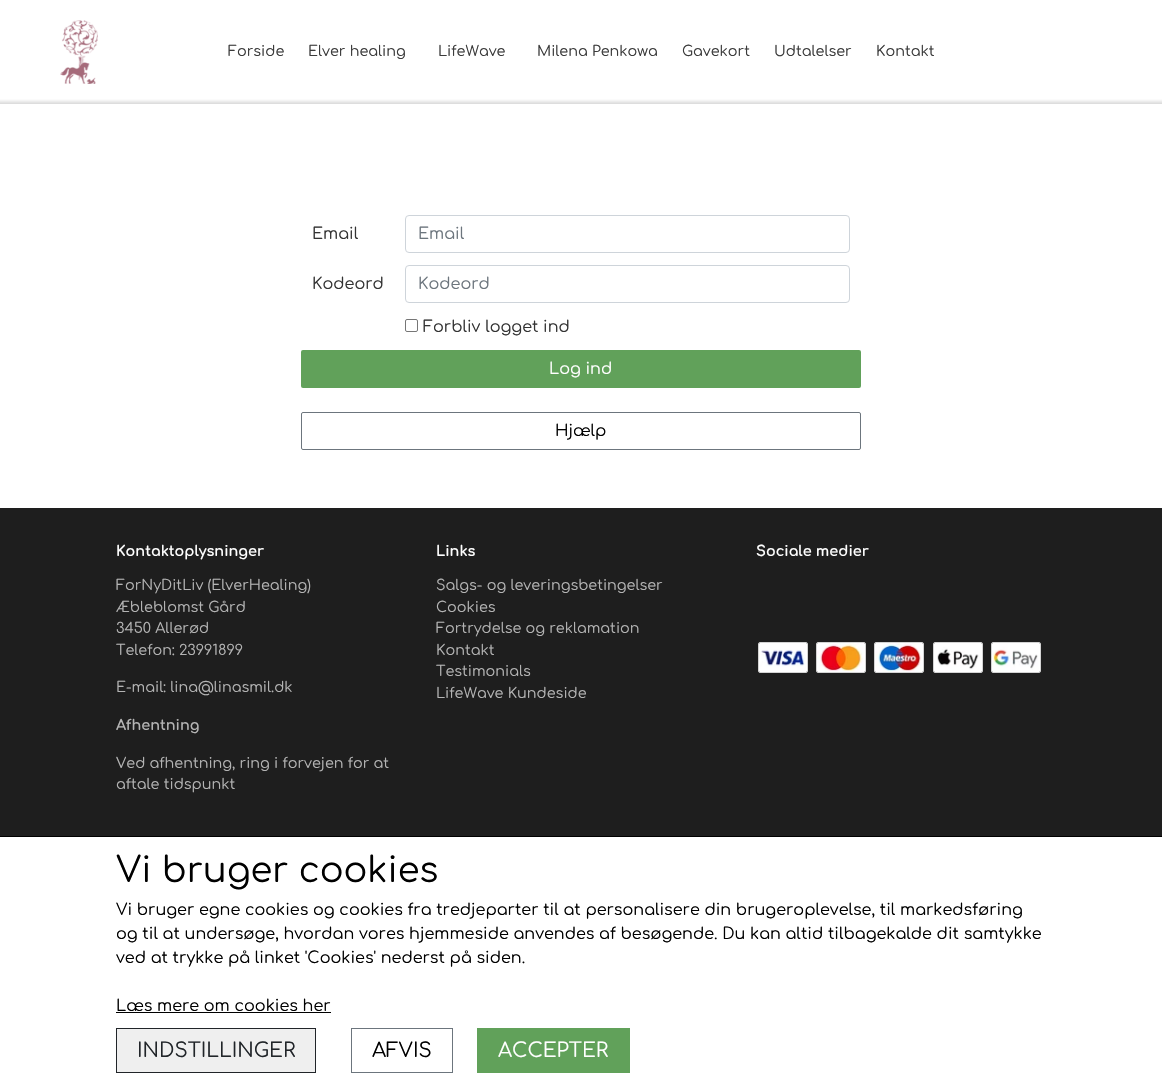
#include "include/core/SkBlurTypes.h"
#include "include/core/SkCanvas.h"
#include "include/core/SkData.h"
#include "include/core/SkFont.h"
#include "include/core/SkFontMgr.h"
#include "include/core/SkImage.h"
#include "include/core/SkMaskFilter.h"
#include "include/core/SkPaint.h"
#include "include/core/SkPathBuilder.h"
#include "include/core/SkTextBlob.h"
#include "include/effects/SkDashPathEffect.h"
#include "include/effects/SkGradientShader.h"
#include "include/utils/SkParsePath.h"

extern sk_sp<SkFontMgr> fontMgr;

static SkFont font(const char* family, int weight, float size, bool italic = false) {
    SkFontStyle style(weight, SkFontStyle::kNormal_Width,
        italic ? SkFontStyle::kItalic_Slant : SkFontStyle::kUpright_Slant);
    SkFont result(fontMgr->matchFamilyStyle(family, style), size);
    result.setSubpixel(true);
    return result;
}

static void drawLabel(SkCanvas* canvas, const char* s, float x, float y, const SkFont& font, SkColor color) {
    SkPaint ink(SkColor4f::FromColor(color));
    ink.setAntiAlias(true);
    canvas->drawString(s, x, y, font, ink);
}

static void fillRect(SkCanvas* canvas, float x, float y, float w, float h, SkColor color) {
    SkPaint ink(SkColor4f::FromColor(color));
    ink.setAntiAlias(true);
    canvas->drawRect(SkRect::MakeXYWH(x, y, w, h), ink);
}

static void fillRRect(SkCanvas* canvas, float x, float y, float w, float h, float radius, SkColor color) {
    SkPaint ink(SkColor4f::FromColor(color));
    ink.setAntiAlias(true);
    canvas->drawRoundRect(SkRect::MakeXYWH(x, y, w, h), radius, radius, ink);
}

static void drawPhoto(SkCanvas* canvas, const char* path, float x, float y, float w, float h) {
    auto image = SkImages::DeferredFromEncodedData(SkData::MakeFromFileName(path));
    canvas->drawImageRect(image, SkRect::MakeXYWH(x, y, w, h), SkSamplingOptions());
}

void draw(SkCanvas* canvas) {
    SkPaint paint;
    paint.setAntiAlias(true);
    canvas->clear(0xFF1E1E1E);
    fillRect(canvas, 0, 0, 1162, 99, 0xFFFFFFFF);
    drawPhoto(canvas, "assets/img1.png", 60, 20, 38, 64);
    SkFont font1 = font("Comfortaa", 400, 14.4f);
    drawLabel(canvas, "Forside", 228, 56, font1, 0xFF3B3B3B);
    drawLabel(canvas, "Elver healing", 308, 56, font1, 0xFF3B3B3B);
    drawLabel(canvas, "LifeWave", 438, 56, font1, 0xFF3B3B3B);
    drawLabel(canvas, "Milena Penkowa", 537, 56, font1, 0xFF3B3B3B);
    drawLabel(canvas, "Gavekort", 682, 56, font1, 0xFF3B3B3B);
    drawLabel(canvas, "Udtalelser", 774, 56, font1, 0xFF3B3B3B);
    drawLabel(canvas, "Kontakt", 876, 56, font1, 0xFF3B3B3B);
    {
        const SkColor colors[] = {0xFFD9D9D9, 0xFFFFFFFF};
        const float stops[] = {0, 1};
        const SkPoint ends[] = {{581, 104}, {581, 99}};
        paint.setShader(SkGradientShader::MakeLinear(ends, colors, stops, 2, SkTileMode::kClamp));
        paint.setAlpha(255);
    }
    canvas->drawRect(SkRect::MakeXYWH(0, 99, 1162, 5), paint);
    fillRect(canvas, 0, 104, 1162, 404, 0xFFFFFFFF);
    SkFont font2 = font("Comfortaa", 400, 16);
    drawLabel(canvas, "Email", 312, 239, font2, 0xFF333333);
    paint.setStroke(true);
    paint.setStrokeWidth(1);
    paint.setShader(nullptr);
    paint.setColor(0xFFCED4DA);
    canvas->drawRoundRect(SkRect::MakeXYWH(405.5f, 215.5f, 444, 37), 3.5f, 3.5f, paint);
    drawLabel(canvas, "Email", 418, 239, font2, 0xFF6C757D);
    drawLabel(canvas, "Kodeord", 312, 289, font2, 0xFF333333);
    canvas->drawRoundRect(SkRect::MakeXYWH(405.5f, 265.5f, 444, 37), 3.5f, 3.5f, paint);
    drawLabel(canvas, "Kodeord", 418, 289, font2, 0xFF6C757D);
    paint.setColor(0xFF767676);
    canvas->drawRoundRect(SkRect::MakeXYWH(405.5f, 319.5f, 12, 12), 1.5f, 1.5f, paint);
    drawLabel(canvas, "Forbliv logget ind", 423, 332, font2, 0xFF333333);
    fillRRect(canvas, 301, 350, 560, 38, 2, 0xFF61A15A);
    drawLabel(canvas, "Log ind", 549, 374, font2, 0xFFFFFFFF);
    paint.setColor(0xFF6C757D);
    canvas->drawRoundRect(SkRect::MakeXYWH(301.5f, 412.5f, 559, 37), 1.5f, 1.5f, paint);
    drawLabel(canvas, "Hjælp", 555, 436, font2, 0xFF000000);
    SkFont font3 = font("Comfortaa", 700, 14.4f);
    drawLabel(canvas, "Kontaktoplysninger", 116, 556, font3, 0xFFFFFFFF);
    drawLabel(canvas, "ForNyDitLiv (ElverHealing)", 116, 590, font1, 0xFFB4B4B4);
    drawLabel(canvas, "Æbleblomst Gård", 116, 612, font1, 0xFFB4B4B4);
    drawLabel(canvas, "3450 Allerød", 116, 633, font1, 0xFFB4B4B4);
    drawLabel(canvas, "Telefon: 23991899", 116, 655, font1, 0xFFB4B4B4);
    drawLabel(canvas, "E-mail: lina@linasmil.dk", 116, 692, font1, 0xFFB4B4B4);
    drawLabel(canvas, "Afhentning", 116, 730, font3, 0xFFB4B4B4);
    drawLabel(canvas, "Ved afhentning, ring i forvejen for at", 116, 768, font1, 0xFFB4B4B4);
    drawLabel(canvas, "aftale tidspunkt", 116, 789, font1, 0xFFB4B4B4);
    drawLabel(canvas, "Links", 436, 556, font3, 0xFFFFFFFF);
    drawLabel(canvas, "Salgs- og leveringsbetingelser", 436, 590, font1, 0xFFB4B4B4);
    drawLabel(canvas, "Cookies", 436, 612, font1, 0xFFB4B4B4);
    drawLabel(canvas, "Fortrydelse og reklamation", 436, 633, font1, 0xFFB4B4B4);
    drawLabel(canvas, "Kontakt", 436, 655, font1, 0xFFB4B4B4);
    drawLabel(canvas, "Testimonials", 436, 676, font1, 0xFFB4B4B4);
    drawLabel(canvas, "LifeWave Kundeside", 436, 698, font1, 0xFFB4B4B4);
    drawLabel(canvas, "Sociale medier", 756, 556, font3, 0xFFFFFFFF);
    paint.setColor(0xFFD3D3D3);
    canvas->drawRoundRect(SkRect::MakeXYWH(758.5f, 642.5f, 49, 30), 1.5f, 1.5f, paint);
    canvas->drawRoundRect(SkRect::MakeXYWH(816.5f, 642.5f, 49, 30), 1.5f, 1.5f, paint);
    canvas->drawRoundRect(SkRect::MakeXYWH(874.5f, 642.5f, 49, 30), 1.5f, 1.5f, paint);
    canvas->drawRoundRect(SkRect::MakeXYWH(933.5f, 642.5f, 49, 30), 1.5f, 1.5f, paint);
    canvas->drawRoundRect(SkRect::MakeXYWH(991.5f, 642.5f, 49, 30), 1.5f, 1.5f, paint);
    drawPhoto(canvas, "assets/img2.png", 759, 643, 48, 29);
    drawPhoto(canvas, "assets/img3.png", 817, 643, 48, 29);
    drawPhoto(canvas, "assets/img4.png", 875, 643, 48, 29);
    drawPhoto(canvas, "assets/img5.png", 934, 643, 48, 29);
    drawPhoto(canvas, "assets/img6.png", 992, 643, 48, 29);
    fillRect(canvas, 0, 837, 1162, 244, 0xFFFFFFFF);
    fillRect(canvas, 0, 836, 1162, 1, 0xFF000000);
    SkFont font4 = font("Comfortaa", 400, 35.25f);
    drawLabel(canvas, "Vi bruger cookies", 116, 882, font4, 0xFF000000);
    drawLabel(canvas, "Vi bruger egne cookies og cookies fra tredjeparter til at personalisere din brugeroplevelse, til markedsføring", 116, 915, font2, 0xFF000000);
    drawLabel(canvas, "og til at undersøge, hvordan vores hjemmeside anvendes af besøgende. Du kan altid tilbagekalde dit samtykke", 116, 939, font2, 0xFF000000);
    drawLabel(canvas, "ved at trykke på linket 'Cookies' nederst på siden.", 116, 963, font2, 0xFF000000);
    drawLabel(canvas, "Læs mere om cookies her", 116, 1011, font2, 0xFF000000);
    fillRect(canvas, 116, 1012, 215, 1, 0xFF000000);
    paint.setStroke(false);
    paint.setColor(0xFFEFEFEF);
    canvas->drawRect(SkRect::MakeXYWH(116.5f, 1028.5f, 199, 44), paint);
    paint.setStroke(true);
    paint.setColor(0xFF212529);
    canvas->drawRect(SkRect::MakeXYWH(116.5f, 1028.5f, 199, 44), paint);
    SkFont font5 = font("Comfortaa", 400, 20);
    drawLabel(canvas, "INDSTILLINGER", 137, 1057, font5, 0xFF212529);
    paint.setColor(0xFF6C757D);
    canvas->drawRect(SkRect::MakeXYWH(351.5f, 1028.5f, 101, 44), paint);
    drawLabel(canvas, "AFVIS", 372, 1057, font5, 0xFF000000);
    fillRect(canvas, 477, 1028, 153, 45, 0xFF61A15A);
    drawLabel(canvas, "ACCEPTER", 498, 1057, font5, 0xFFFFFFFF);
}
